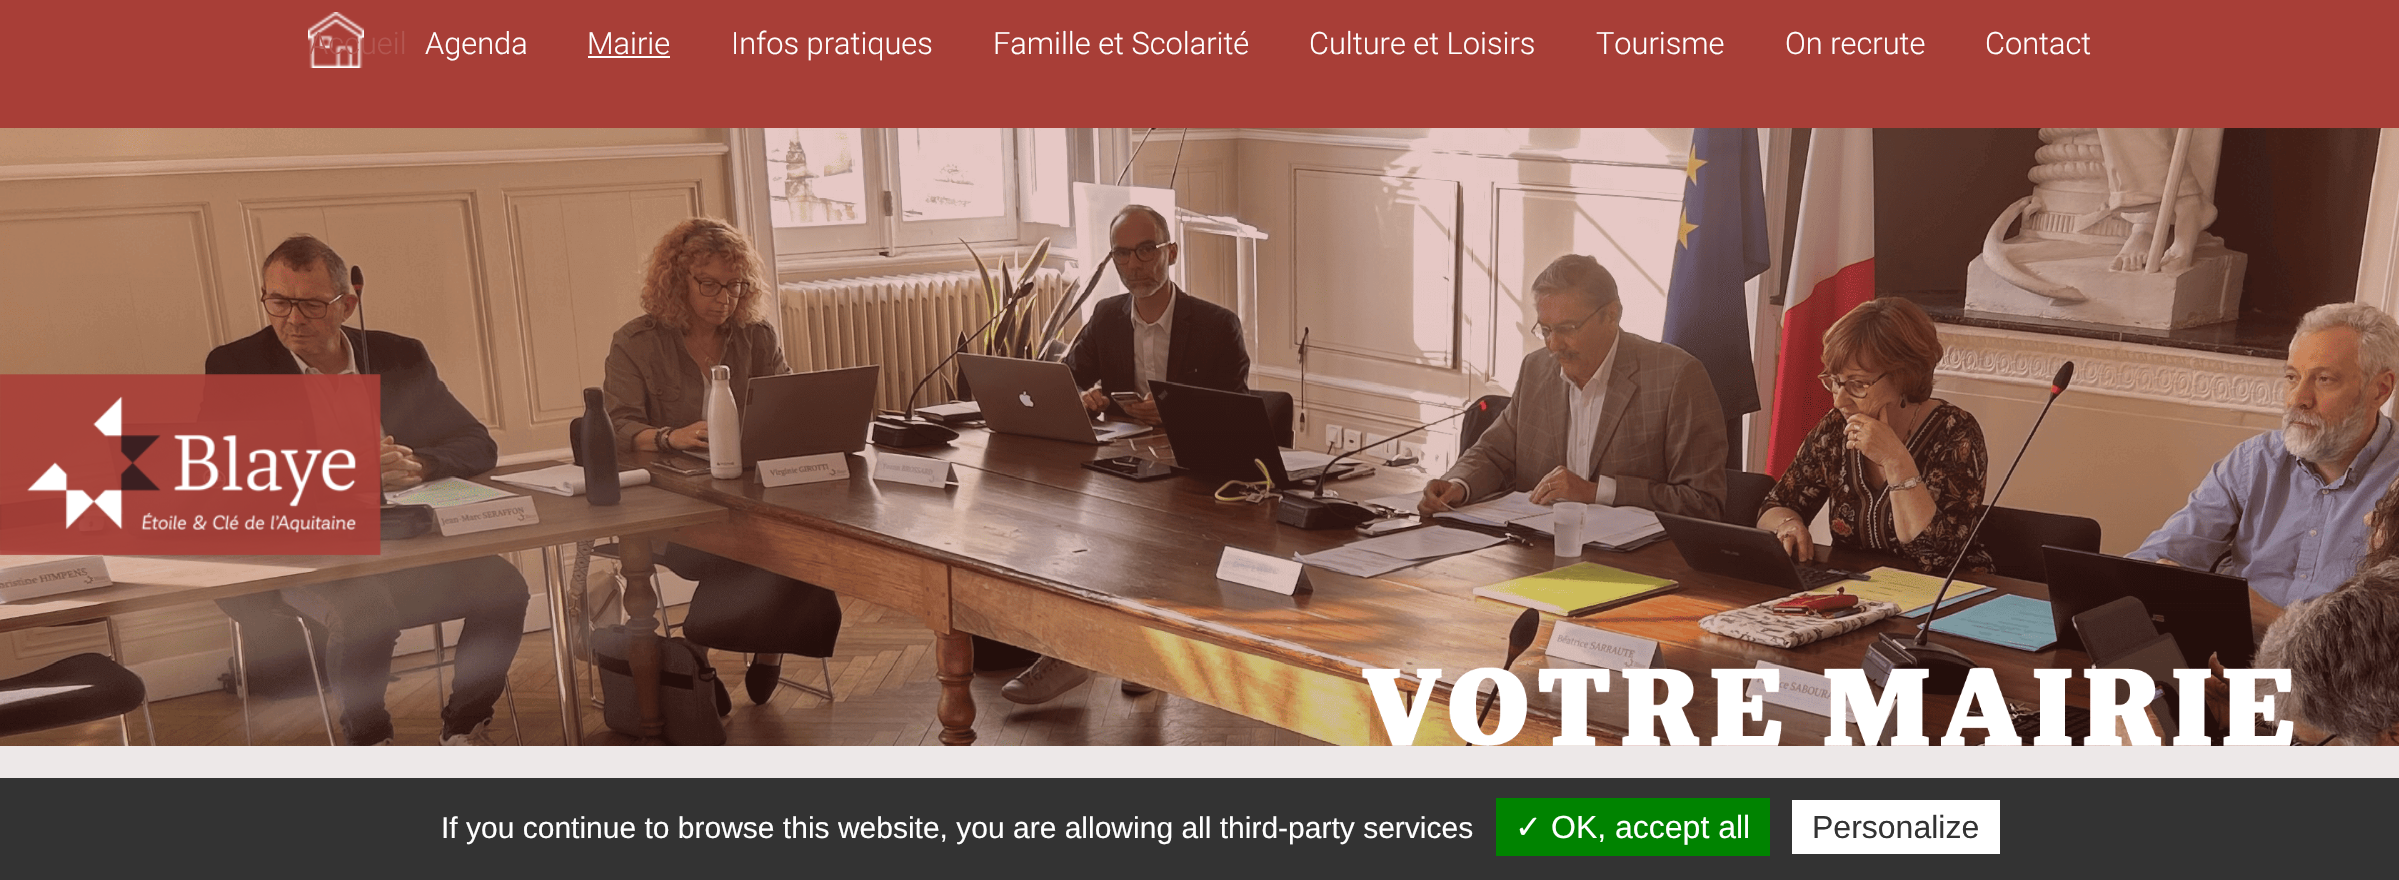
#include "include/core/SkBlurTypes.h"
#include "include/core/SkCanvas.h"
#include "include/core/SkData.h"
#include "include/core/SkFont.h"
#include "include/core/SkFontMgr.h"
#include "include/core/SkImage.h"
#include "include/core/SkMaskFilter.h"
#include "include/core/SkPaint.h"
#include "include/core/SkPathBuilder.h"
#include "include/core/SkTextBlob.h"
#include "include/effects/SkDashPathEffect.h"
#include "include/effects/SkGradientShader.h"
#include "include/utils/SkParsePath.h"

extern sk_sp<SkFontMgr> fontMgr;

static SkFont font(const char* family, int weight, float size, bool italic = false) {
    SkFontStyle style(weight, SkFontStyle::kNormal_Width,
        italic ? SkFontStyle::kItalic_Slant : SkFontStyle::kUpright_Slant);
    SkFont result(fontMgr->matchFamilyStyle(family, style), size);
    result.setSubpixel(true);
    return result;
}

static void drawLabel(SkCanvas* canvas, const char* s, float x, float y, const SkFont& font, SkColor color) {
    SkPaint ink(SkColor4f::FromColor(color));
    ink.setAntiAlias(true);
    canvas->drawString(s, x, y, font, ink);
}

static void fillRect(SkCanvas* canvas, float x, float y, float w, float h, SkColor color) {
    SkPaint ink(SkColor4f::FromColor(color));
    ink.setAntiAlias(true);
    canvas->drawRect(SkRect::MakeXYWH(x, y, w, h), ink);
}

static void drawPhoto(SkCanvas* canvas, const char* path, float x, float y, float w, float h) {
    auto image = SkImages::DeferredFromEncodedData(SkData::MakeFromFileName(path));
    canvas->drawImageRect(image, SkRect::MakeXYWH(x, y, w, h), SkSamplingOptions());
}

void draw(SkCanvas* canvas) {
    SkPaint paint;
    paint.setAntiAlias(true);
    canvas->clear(0xFFA83E37);
    drawPhoto(canvas, "assets/img1.png", 308, 12, 56, 56);
    SkFont font1 = font("Roboto", 300, 30.75f);
    drawLabel(canvas, "Accueil", 309, 54, font1, 0xFFB35751);
    drawLabel(canvas, "Agenda", 425, 54, font1, 0xFFFFFFFF);
    drawLabel(canvas, "Mairie", 587, 54, font1, 0xFFFFFFFF);
    fillRect(canvas, 588, 56, 82, 2, 0xFFFFFFFF);
    drawLabel(canvas, "Infos pratiques", 731, 54, font1, 0xFFFFFFFF);
    drawLabel(canvas, "Famille et Scolarité", 993, 54, font1, 0xFFFFFFFF);
    drawLabel(canvas, "Culture et Loisirs", 1309, 54, font1, 0xFFFFFFFF);
    drawLabel(canvas, "Tourisme", 1596, 54, font1, 0xFFFFFFFF);
    drawLabel(canvas, "On recrute", 1785, 54, font1, 0xFFFFFFFF);
    drawLabel(canvas, "Contact", 1985, 54, font1, 0xFFFFFFFF);
    drawPhoto(canvas, "assets/img2.png", 0, 128, 2399, 618);
    drawPhoto(canvas, "assets/img3.png", 0, 374, 381, 182);
    fillRect(canvas, 0, 746, 2399, 32, 0xFFEDE8E8);
    fillRect(canvas, 0, 778, 2399, 102, 0xFF333333);
    SkFont font2 = font("Liberation Sans", 400, 30);
    drawLabel(canvas, "If you continue to browse this website, you are allowing all third-party services", 441, 838, font2, 0xFFFFFFFF);
    fillRect(canvas, 1496, 798, 274, 58, 0xFF008300);
    SkFont font3 = font("DejaVu Sans", 400, 32);
    drawLabel(canvas, "✓", 1515, 838, font3, 0xFFFFFFFF);
    SkFont font4 = font("Liberation Sans", 400, 32);
    drawLabel(canvas, "OK, accept all", 1551, 838, font4, 0xFFFFFFFF);
    fillRect(canvas, 1792, 800, 208, 54, 0xFFFFFFFF);
    drawLabel(canvas, "Personalize", 1812, 838, font4, 0xFF333333);
}
